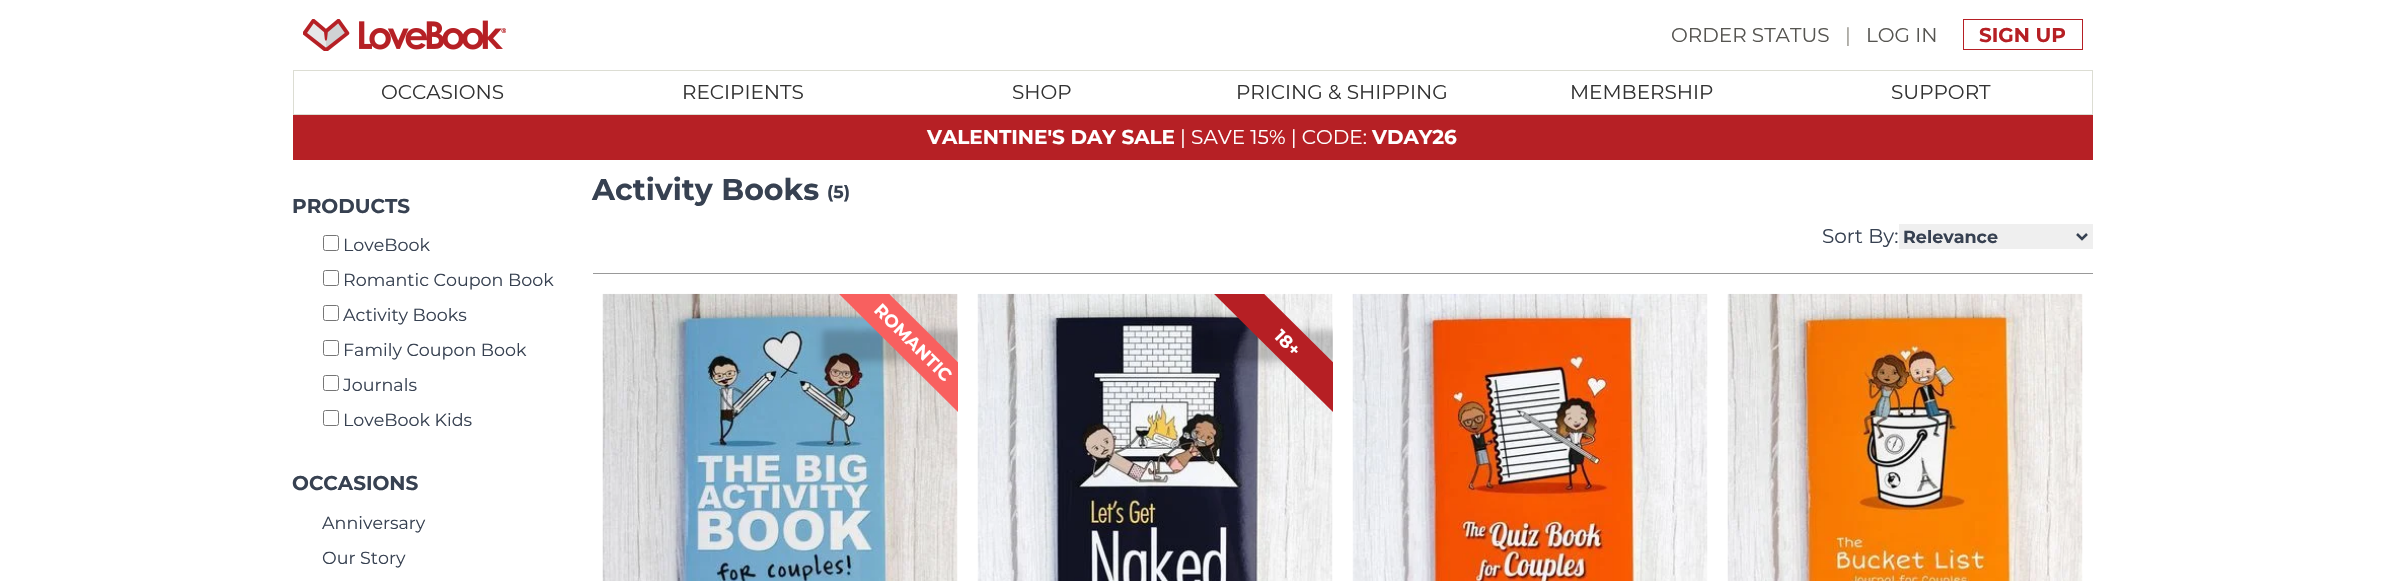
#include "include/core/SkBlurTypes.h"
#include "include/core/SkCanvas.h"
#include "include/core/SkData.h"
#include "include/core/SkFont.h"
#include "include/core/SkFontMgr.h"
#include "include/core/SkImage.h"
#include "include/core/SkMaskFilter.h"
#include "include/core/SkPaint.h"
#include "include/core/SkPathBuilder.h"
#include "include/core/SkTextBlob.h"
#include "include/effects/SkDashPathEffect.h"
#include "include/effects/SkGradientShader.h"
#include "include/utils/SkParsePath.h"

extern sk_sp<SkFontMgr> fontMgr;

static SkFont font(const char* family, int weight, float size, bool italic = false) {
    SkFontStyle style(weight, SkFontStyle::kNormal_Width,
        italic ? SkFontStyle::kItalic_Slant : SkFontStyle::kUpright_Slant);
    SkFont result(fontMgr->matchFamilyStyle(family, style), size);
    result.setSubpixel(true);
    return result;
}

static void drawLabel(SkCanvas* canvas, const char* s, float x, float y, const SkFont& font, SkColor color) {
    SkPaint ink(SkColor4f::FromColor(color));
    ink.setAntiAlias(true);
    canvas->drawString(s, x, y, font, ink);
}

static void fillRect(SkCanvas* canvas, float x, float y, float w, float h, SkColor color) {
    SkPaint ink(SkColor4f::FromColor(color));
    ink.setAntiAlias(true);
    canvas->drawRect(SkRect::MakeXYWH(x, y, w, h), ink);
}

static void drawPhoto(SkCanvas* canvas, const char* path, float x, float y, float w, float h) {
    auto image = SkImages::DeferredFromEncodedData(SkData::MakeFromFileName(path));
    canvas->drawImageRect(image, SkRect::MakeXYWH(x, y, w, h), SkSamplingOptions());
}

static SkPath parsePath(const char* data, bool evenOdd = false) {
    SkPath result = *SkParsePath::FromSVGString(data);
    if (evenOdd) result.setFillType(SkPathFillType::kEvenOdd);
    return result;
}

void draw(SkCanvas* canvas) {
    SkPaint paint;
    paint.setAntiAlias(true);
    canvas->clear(0xFFFFFFFF);
    drawPhoto(canvas, "assets/img1.png", 303, 19, 203, 32);
    SkFont font1 = font("Montserrat", 400, 20);
    drawLabel(canvas, "ORDER STATUS", 1671, 42, font1, 0xFF565551);
    drawLabel(canvas, "|", 1845, 42, font1, 0xFF999790);
    drawLabel(canvas, "LOG IN", 1866, 42, font1, 0xFF565551);
    paint.setStroke(true);
    paint.setStrokeWidth(1);
    paint.setColor(0xFFB61F24);
    canvas->drawRect(SkRect::MakeXYWH(1963.5f, 19.5f, 119, 30), paint);
    SkFont font2 = font("Montserrat", 700, 20);
    drawLabel(canvas, "SIGN UP", 1979, 42, font2, 0xFFB61F24);
    paint.setColor(0xFFDCDDD3);
    canvas->drawRect(SkRect::MakeXYWH(293.5f, 70.5f, 1799, 44), paint);
    drawLabel(canvas, "OCCASIONS", 381, 99, font1, 0xFF333333);
    drawLabel(canvas, "RECIPIENTS", 682, 99, font1, 0xFF333333);
    drawLabel(canvas, "SHOP", 1012, 99, font1, 0xFF333333);
    drawLabel(canvas, "PRICING & SHIPPING", 1236, 99, font1, 0xFF333333);
    drawLabel(canvas, "MEMBERSHIP", 1570, 99, font1, 0xFF333333);
    drawLabel(canvas, "SUPPORT", 1891, 99, font1, 0xFF333333);
    fillRect(canvas, 293, 115, 1800, 45, 0xFFB62025);
    drawLabel(canvas, "VALENTINE'S DAY SALE", 927, 144, font2, 0xFFFFFFFF);
    drawLabel(canvas, "| SAVE 15% | CODE:", 1180, 144, font1, 0xFFFFFFFF);
    drawLabel(canvas, "VDAY26", 1372, 144, font2, 0xFFFFFFFF);
    drawLabel(canvas, "PRODUCTS", 292, 213, font2, 0xFF374151);
    paint.setColor(0xFF767676);
    canvas->drawRoundRect(SkRect::MakeXYWH(323.5f, 235.5f, 15, 15), 2, 2, paint);
    SkFont font3 = font("Montserrat", 400, 17.5f);
    drawLabel(canvas, "LoveBook", 343, 251, font3, 0xFF374151);
    canvas->drawRoundRect(SkRect::MakeXYWH(323.5f, 270.5f, 15, 15), 2, 2, paint);
    drawLabel(canvas, "Romantic Coupon Book", 343, 286, font3, 0xFF374151);
    canvas->drawRoundRect(SkRect::MakeXYWH(323.5f, 305.5f, 15, 15), 2, 2, paint);
    drawLabel(canvas, "Activity Books", 343, 321, font3, 0xFF374151);
    canvas->drawRoundRect(SkRect::MakeXYWH(323.5f, 340.5f, 15, 15), 2, 2, paint);
    drawLabel(canvas, "Family Coupon Book", 343, 356, font3, 0xFF374151);
    canvas->drawRoundRect(SkRect::MakeXYWH(323.5f, 375.5f, 15, 15), 2, 2, paint);
    drawLabel(canvas, "Journals", 343, 391, font3, 0xFF374151);
    canvas->drawRoundRect(SkRect::MakeXYWH(323.5f, 410.5f, 15, 15), 2, 2, paint);
    drawLabel(canvas, "LoveBook Kids", 343, 426, font3, 0xFF374151);
    drawLabel(canvas, "OCCASIONS", 292, 490, font2, 0xFF374151);
    drawLabel(canvas, "Anniversary", 322, 529, font3, 0xFF374151);
    drawLabel(canvas, "Our Story", 322, 564, font3, 0xFF374151);
    fillRect(canvas, 593, 273, 1500, 1, 0xFF999999);
    SkFont font4 = font("Montserrat", 700, 30);
    drawLabel(canvas, "Activity Books", 592, 200, font4, 0xFF374151);
    SkFont font5 = font("Montserrat", 700, 17.5f);
    drawLabel(canvas, "(5)", 827, 198, font5, 0xFF374151);
    drawLabel(canvas, "Sort By:", 1822, 243, font1, 0xFF374151);
    fillRect(canvas, 1899, 224, 194, 25, 0xFFEFEFEF);
    paint.setStrokeWidth(2.5f);
    paint.setColor(0xFF374151);
    canvas->drawPath(parsePath("M2077 234L2082 239L2087 234"), paint);
    drawLabel(canvas, "Relevance", 1903, 243, font5, 0xFF374151);
    drawPhoto(canvas, "assets/img2.png", 602, 293, 356, 288);
    canvas->save();
    canvas->clipRect(SkRect::MakeXYWH(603, 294, 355, 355));
    paint.setStroke(false);
    paint.setColor(0x1A000000);
    paint.setMaskFilter(SkMaskFilter::MakeBlur(kNormal_SkBlurStyle, 2.5f));
    canvas->drawRect(SkRect::MakeXYWH(823, 330, 182, 30), paint);
    paint.setMaskFilter(nullptr);
    paint.setMaskFilter(SkMaskFilter::MakeBlur(kNormal_SkBlurStyle, 4));
    canvas->drawRect(SkRect::MakeXYWH(821, 331, 185, 33), paint);
    paint.setMaskFilter(nullptr);
    canvas->restore();
    canvas->save();
    canvas->clipRect(SkRect::MakeXYWH(603, 294, 355, 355));
    paint.setColor(0xFFF8605F);
    canvas->drawPath(parsePath("M859 264L992 396L967 421L834 289Z"), paint);
    canvas->restore();
    canvas->save();
    canvas->rotate(45, 873, 311);
    drawLabel(canvas, "ROMANTIC", 873, 311, font5, 0xFFFFFFFF);
    canvas->restore();
    drawPhoto(canvas, "assets/img3.png", 977, 293, 356, 288);
    canvas->save();
    canvas->clipRect(SkRect::MakeXYWH(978, 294, 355, 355));
    paint.setColor(0x1A000000);
    paint.setMaskFilter(SkMaskFilter::MakeBlur(kNormal_SkBlurStyle, 2.5f));
    canvas->drawRect(SkRect::MakeXYWH(1198, 330, 182, 30), paint);
    paint.setMaskFilter(nullptr);
    paint.setMaskFilter(SkMaskFilter::MakeBlur(kNormal_SkBlurStyle, 4));
    canvas->drawRect(SkRect::MakeXYWH(1196, 331, 185, 33), paint);
    paint.setMaskFilter(nullptr);
    canvas->restore();
    canvas->save();
    canvas->clipRect(SkRect::MakeXYWH(978, 294, 355, 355));
    paint.setColor(0xFFB61F24);
    canvas->drawPath(parsePath("M1234 264L1367 396L1342 421L1209 289Z"), paint);
    canvas->restore();
    canvas->save();
    canvas->rotate(45, 1273, 337);
    drawLabel(canvas, "18+", 1273, 337, font5, 0xFFFFFFFF);
    canvas->restore();
    drawPhoto(canvas, "assets/img4.png", 1352, 293, 356, 288);
    drawPhoto(canvas, "assets/img5.png", 1727, 293, 356, 288);
}
